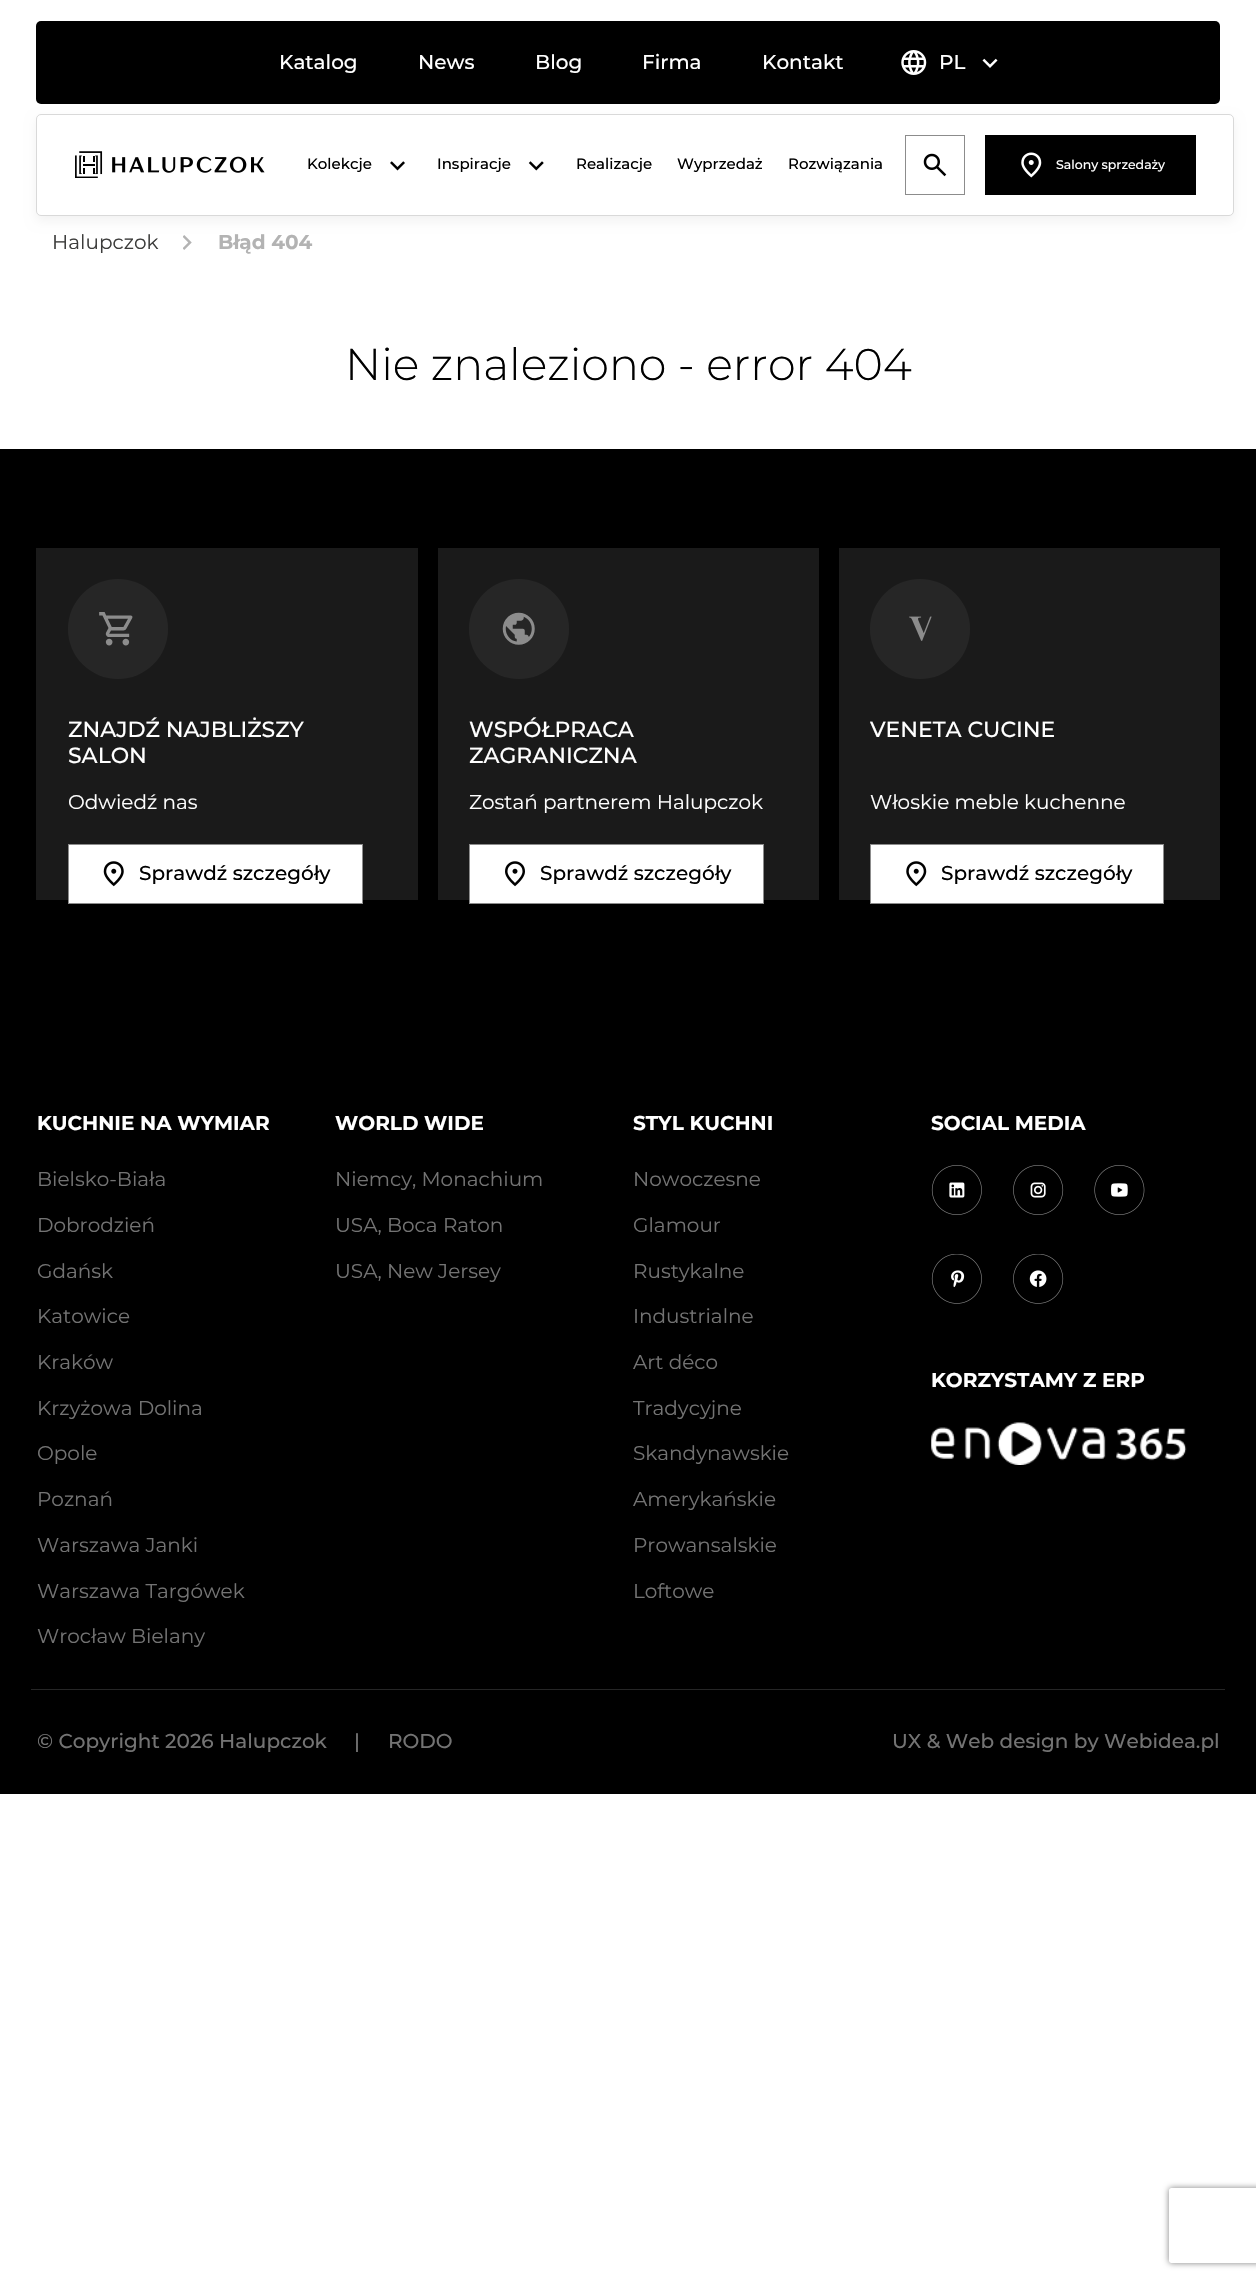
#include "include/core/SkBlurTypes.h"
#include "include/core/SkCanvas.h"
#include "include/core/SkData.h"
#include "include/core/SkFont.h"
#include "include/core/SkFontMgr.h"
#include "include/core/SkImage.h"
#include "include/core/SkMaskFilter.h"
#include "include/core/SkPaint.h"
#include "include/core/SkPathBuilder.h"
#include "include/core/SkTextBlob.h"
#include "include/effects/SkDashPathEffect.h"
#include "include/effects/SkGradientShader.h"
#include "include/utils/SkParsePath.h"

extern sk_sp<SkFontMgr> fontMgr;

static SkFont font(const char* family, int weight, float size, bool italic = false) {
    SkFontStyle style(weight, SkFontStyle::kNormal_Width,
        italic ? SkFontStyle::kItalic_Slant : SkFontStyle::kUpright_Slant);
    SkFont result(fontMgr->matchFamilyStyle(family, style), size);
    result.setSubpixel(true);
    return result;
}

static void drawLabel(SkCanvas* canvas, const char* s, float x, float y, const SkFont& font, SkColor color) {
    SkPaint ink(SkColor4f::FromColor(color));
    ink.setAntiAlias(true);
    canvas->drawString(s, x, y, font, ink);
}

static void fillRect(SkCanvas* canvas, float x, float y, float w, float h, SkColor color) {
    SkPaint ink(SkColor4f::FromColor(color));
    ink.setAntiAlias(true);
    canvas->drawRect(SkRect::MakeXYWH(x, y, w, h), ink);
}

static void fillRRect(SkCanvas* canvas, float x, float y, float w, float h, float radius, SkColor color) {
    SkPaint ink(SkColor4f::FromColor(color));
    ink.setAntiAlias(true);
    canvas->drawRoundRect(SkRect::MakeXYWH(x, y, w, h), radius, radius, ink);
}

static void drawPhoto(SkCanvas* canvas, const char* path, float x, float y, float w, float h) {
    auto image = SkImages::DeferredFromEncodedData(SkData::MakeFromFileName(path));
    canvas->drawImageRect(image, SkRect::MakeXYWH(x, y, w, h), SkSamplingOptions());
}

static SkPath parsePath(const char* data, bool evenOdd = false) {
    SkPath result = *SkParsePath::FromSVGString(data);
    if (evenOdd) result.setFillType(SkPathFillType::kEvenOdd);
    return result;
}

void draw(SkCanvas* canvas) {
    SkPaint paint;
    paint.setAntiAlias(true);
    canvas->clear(0xFFFFFFFF);
    fillRRect(canvas, 36, 21, 1184, 83, 5, 0xFF000000);
    SkFont font1 = font("Montserrat", 500, 20);
    drawLabel(canvas, "Katalog", 279, 69, font1, 0xFFFFFFFF);
    drawLabel(canvas, "News", 418, 69, font1, 0xFFFFFFFF);
    drawLabel(canvas, "Blog", 535, 69, font1, 0xFFFFFFFF);
    drawLabel(canvas, "Firma", 642, 69, font1, 0xFFFFFFFF);
    drawLabel(canvas, "Kontakt", 762, 69, font1, 0xFFFFFFFF);
    drawPhoto(canvas, "assets/img1.png", 901, 50, 26, 25);
    drawLabel(canvas, "PL", 939, 69, font1, 0xFFFFFFFF);
    drawPhoto(canvas, "assets/img2.png", 982, 58, 16, 10);
    drawPhoto(canvas, "assets/img8.png", 183, 235, 9, 15);
    paint.setColor(0x0D000000);
    paint.setMaskFilter(SkMaskFilter::MakeBlur(kNormal_SkBlurStyle, 5.5f));
    canvas->drawRoundRect(SkRect::MakeXYWH(36, 119, 1198, 102), 5, 5, paint);
    paint.setMaskFilter(nullptr);
    paint.setColor(0xFFFFFFFF);
    canvas->drawRoundRect(SkRect::MakeXYWH(36.5f, 114.5f, 1197, 101), 4.5f, 4.5f, paint);
    paint.setStroke(true);
    paint.setStrokeWidth(1);
    paint.setColor(0xFFD9D9D9);
    canvas->drawRoundRect(SkRect::MakeXYWH(36.5f, 114.5f, 1197, 101), 4.5f, 4.5f, paint);
    drawPhoto(canvas, "assets/img3.png", 75, 151, 190, 27);
    SkFont font2 = font("Montserrat", 500, 15);
    drawLabel(canvas, "Kolekcje", 307, 169, font2, 0xFF000000);
    drawPhoto(canvas, "assets/img4.png", 390, 161, 15, 10);
    drawLabel(canvas, "Inspiracje", 437, 169, font2, 0xFF000000);
    drawPhoto(canvas, "assets/img5.png", 528, 161, 16, 10);
    drawLabel(canvas, "Realizacje", 576, 169, font2, 0xFF000000);
    drawLabel(canvas, "Wyprzedaż", 677, 169, font2, 0xFF000000);
    drawLabel(canvas, "Rozwiązania", 788, 169, font2, 0xFF000000);
    paint.setColor(0xFF8C8C8C);
    canvas->drawRect(SkRect::MakeXYWH(905.5f, 135.5f, 59, 59), paint);
    drawPhoto(canvas, "assets/img6.png", 923, 153, 24, 24);
    fillRect(canvas, 985, 135, 211, 60, 0xFF000000);
    drawPhoto(canvas, "assets/img7.png", 1021, 152, 21, 26);
    SkFont font3 = font("Montserrat", 500, 12.5f);
    drawLabel(canvas, "Salony sprzedaży", 1056, 169, font3, 0xFFFFFFFF);
    SkFont font4 = font("Montserrat", 400, 20);
    drawLabel(canvas, "Halupczok", 52, 249, font4, 0xFF3D3D3C);
    SkFont font5 = font("Montserrat", 700, 20);
    drawLabel(canvas, "Błąd 404", 218, 249, font5, 0xFFB3B3B3);
    SkFont font6 = font("Montserrat", 300, 44.5f);
    drawLabel(canvas, "Nie znaleziono - error 404", 345, 380, font6, 0xFF000000);
    fillRect(canvas, 0, 449, 1256, 1345, 0xFF000000);
    fillRect(canvas, 36, 548, 382, 352, 0xFF1A1A1A);
    paint.setStroke(false);
    paint.setColor(0xFF262626);
    canvas->drawCircle(118, 629, 50, paint);
    drawPhoto(canvas, "assets/img9.png", 99, 612, 34, 34);
    SkFont font7 = font("Montserrat", 500, 21.9f);
    drawLabel(canvas, "ZNAJDŹ NAJBLIŻSZY", 68, 737, font7, 0xFFFFFFFF);
    drawLabel(canvas, "SALON", 68, 763, font7, 0xFFFFFFFF);
    drawLabel(canvas, "Odwiedź nas", 68, 809, font4, 0xFFFFFFFF);
    paint.setColor(0xFFFFFFFF);
    canvas->drawRect(SkRect::MakeXYWH(68.5f, 844.5f, 294, 59), paint);
    paint.setStroke(true);
    paint.setColor(0xFF8C8C8C);
    canvas->drawRect(SkRect::MakeXYWH(68.5f, 844.5f, 294, 59), paint);
    drawPhoto(canvas, "assets/img10.png", 103, 861, 21, 26);
    drawLabel(canvas, "Sprawdź szczegóły", 139, 880, font1, 0xFF000000);
    fillRect(canvas, 438, 548, 381, 352, 0xFF1A1A1A);
    paint.setStroke(false);
    paint.setColor(0xFF262626);
    canvas->drawCircle(519, 629, 50, paint);
    drawPhoto(canvas, "assets/img11.png", 502, 612, 33, 33);
    drawLabel(canvas, "WSPÓŁPRACA", 469, 737, font7, 0xFFFFFFFF);
    drawLabel(canvas, "ZAGRANICZNA", 469, 763, font7, 0xFFFFFFFF);
    drawLabel(canvas, "Zostań partnerem Halupczok", 469, 809, font4, 0xFFFFFFFF);
    paint.setColor(0xFFFFFFFF);
    canvas->drawRect(SkRect::MakeXYWH(469.5f, 844.5f, 294, 59), paint);
    paint.setStroke(true);
    paint.setColor(0xFF8C8C8C);
    canvas->drawRect(SkRect::MakeXYWH(469.5f, 844.5f, 294, 59), paint);
    drawPhoto(canvas, "assets/img12.png", 505, 861, 20, 26);
    drawLabel(canvas, "Sprawdź szczegóły", 540, 880, font1, 0xFF000000);
    fillRect(canvas, 839, 548, 381, 352, 0xFF1A1A1A);
    paint.setStroke(false);
    paint.setColor(0xFF262626);
    canvas->drawCircle(920, 629, 50, paint);
    drawPhoto(canvas, "assets/img13.png", 909, 616, 23, 25);
    drawLabel(canvas, "VENETA CUCINE", 870, 737, font7, 0xFFFFFFFF);
    drawLabel(canvas, "Włoskie meble kuchenne", 870, 809, font4, 0xFFFFFFFF);
    paint.setColor(0xFFFFFFFF);
    canvas->drawRect(SkRect::MakeXYWH(870.5f, 844.5f, 293, 59), paint);
    paint.setStroke(true);
    paint.setColor(0xFF8C8C8C);
    canvas->drawRect(SkRect::MakeXYWH(870.5f, 844.5f, 293, 59), paint);
    drawPhoto(canvas, "assets/img14.png", 906, 861, 21, 26);
    drawLabel(canvas, "Sprawdź szczegóły", 941, 880, font1, 0xFF000000);
    fillRect(canvas, 31, 1689, 1194, 1, 0xFF262626);
    drawLabel(canvas, "KUCHNIE NA WYMIAR", 37, 1130, font5, 0xFFFFFFFF);
    drawLabel(canvas, "Bielsko-Biała", 37, 1186, font4, 0xFF737373);
    drawLabel(canvas, "Dobrodzień", 37, 1232, font4, 0xFF737373);
    drawLabel(canvas, "Gdańsk", 37, 1278, font4, 0xFF737373);
    drawLabel(canvas, "Katowice", 37, 1323, font4, 0xFF737373);
    drawLabel(canvas, "Kraków", 37, 1369, font4, 0xFF737373);
    drawLabel(canvas, "Krzyżowa Dolina", 37, 1415, font4, 0xFF737373);
    drawLabel(canvas, "Opole", 37, 1460, font4, 0xFF737373);
    drawLabel(canvas, "Poznań", 37, 1506, font4, 0xFF737373);
    drawLabel(canvas, "Warszawa Janki", 37, 1552, font4, 0xFF737373);
    drawLabel(canvas, "Warszawa Targówek", 37, 1598, font4, 0xFF737373);
    drawLabel(canvas, "Wrocław Bielany", 37, 1643, font4, 0xFF737373);
    drawLabel(canvas, "WORLD WIDE", 335, 1130, font5, 0xFFFFFFFF);
    drawLabel(canvas, "Niemcy, Monachium", 335, 1186, font4, 0xFF737373);
    drawLabel(canvas, "USA, Boca Raton", 335, 1232, font4, 0xFF737373);
    drawLabel(canvas, "USA, New Jersey", 335, 1278, font4, 0xFF737373);
    drawLabel(canvas, "STYL KUCHNI", 633, 1130, font5, 0xFFFFFFFF);
    drawLabel(canvas, "Nowoczesne", 633, 1186, font4, 0xFF737373);
    drawLabel(canvas, "Glamour", 633, 1232, font4, 0xFF737373);
    drawLabel(canvas, "Rustykalne", 633, 1278, font4, 0xFF737373);
    drawLabel(canvas, "Industrialne", 633, 1323, font4, 0xFF737373);
    drawLabel(canvas, "Art déco", 633, 1369, font4, 0xFF737373);
    drawLabel(canvas, "Tradycyjne", 633, 1415, font4, 0xFF737373);
    drawLabel(canvas, "Skandynawskie", 633, 1460, font4, 0xFF737373);
    drawLabel(canvas, "Amerykańskie", 633, 1506, font4, 0xFF737373);
    drawLabel(canvas, "Prowansalskie", 633, 1552, font4, 0xFF737373);
    drawLabel(canvas, "Loftowe", 633, 1598, font4, 0xFF737373);
    drawLabel(canvas, "SOCIAL MEDIA", 931, 1130, font5, 0xFFFFFFFF);
    drawPhoto(canvas, "assets/img15.png", 931, 1165, 51, 50);
    drawPhoto(canvas, "assets/img16.png", 1013, 1165, 51, 50);
    drawPhoto(canvas, "assets/img17.png", 1094, 1165, 51, 50);
    drawPhoto(canvas, "assets/img18.png", 931, 1254, 51, 50);
    drawPhoto(canvas, "assets/img19.png", 1013, 1254, 51, 50);
    drawLabel(canvas, "KORZYSTAMY Z ERP", 931, 1387, font5, 0xFFFFFFFF);
    drawPhoto(canvas, "assets/img20.png", 931, 1422, 256, 43);
    drawLabel(canvas, "© Copyright 2026 Halupczok", 37, 1748, font1, 0xFF737373);
    drawLabel(canvas, "|", 354, 1748, font1, 0xFF737373);
    drawLabel(canvas, "RODO", 388, 1748, font1, 0xFF737373);
    drawLabel(canvas, "UX & Web design by Webidea.pl", 892, 1748, font1, 0xFF737373);
    canvas->save();
    canvas->clipPath(parsePath("M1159 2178H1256V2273H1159ZM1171.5 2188H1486.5C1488 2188 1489 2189 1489 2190.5V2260.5C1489 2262 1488 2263 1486.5 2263H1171.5C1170 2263 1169 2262 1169 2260.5V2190.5C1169 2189 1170 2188 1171.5 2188Z", true), true);
    paint.setStroke(false);
    paint.setColor(0xFF808080);
    paint.setMaskFilter(SkMaskFilter::MakeBlur(kNormal_SkBlurStyle, 3));
    canvas->drawRoundRect(SkRect::MakeXYWH(1169, 2188, 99, 75), 2.5f, 2.5f, paint);
    paint.setMaskFilter(nullptr);
    canvas->restore();
}
